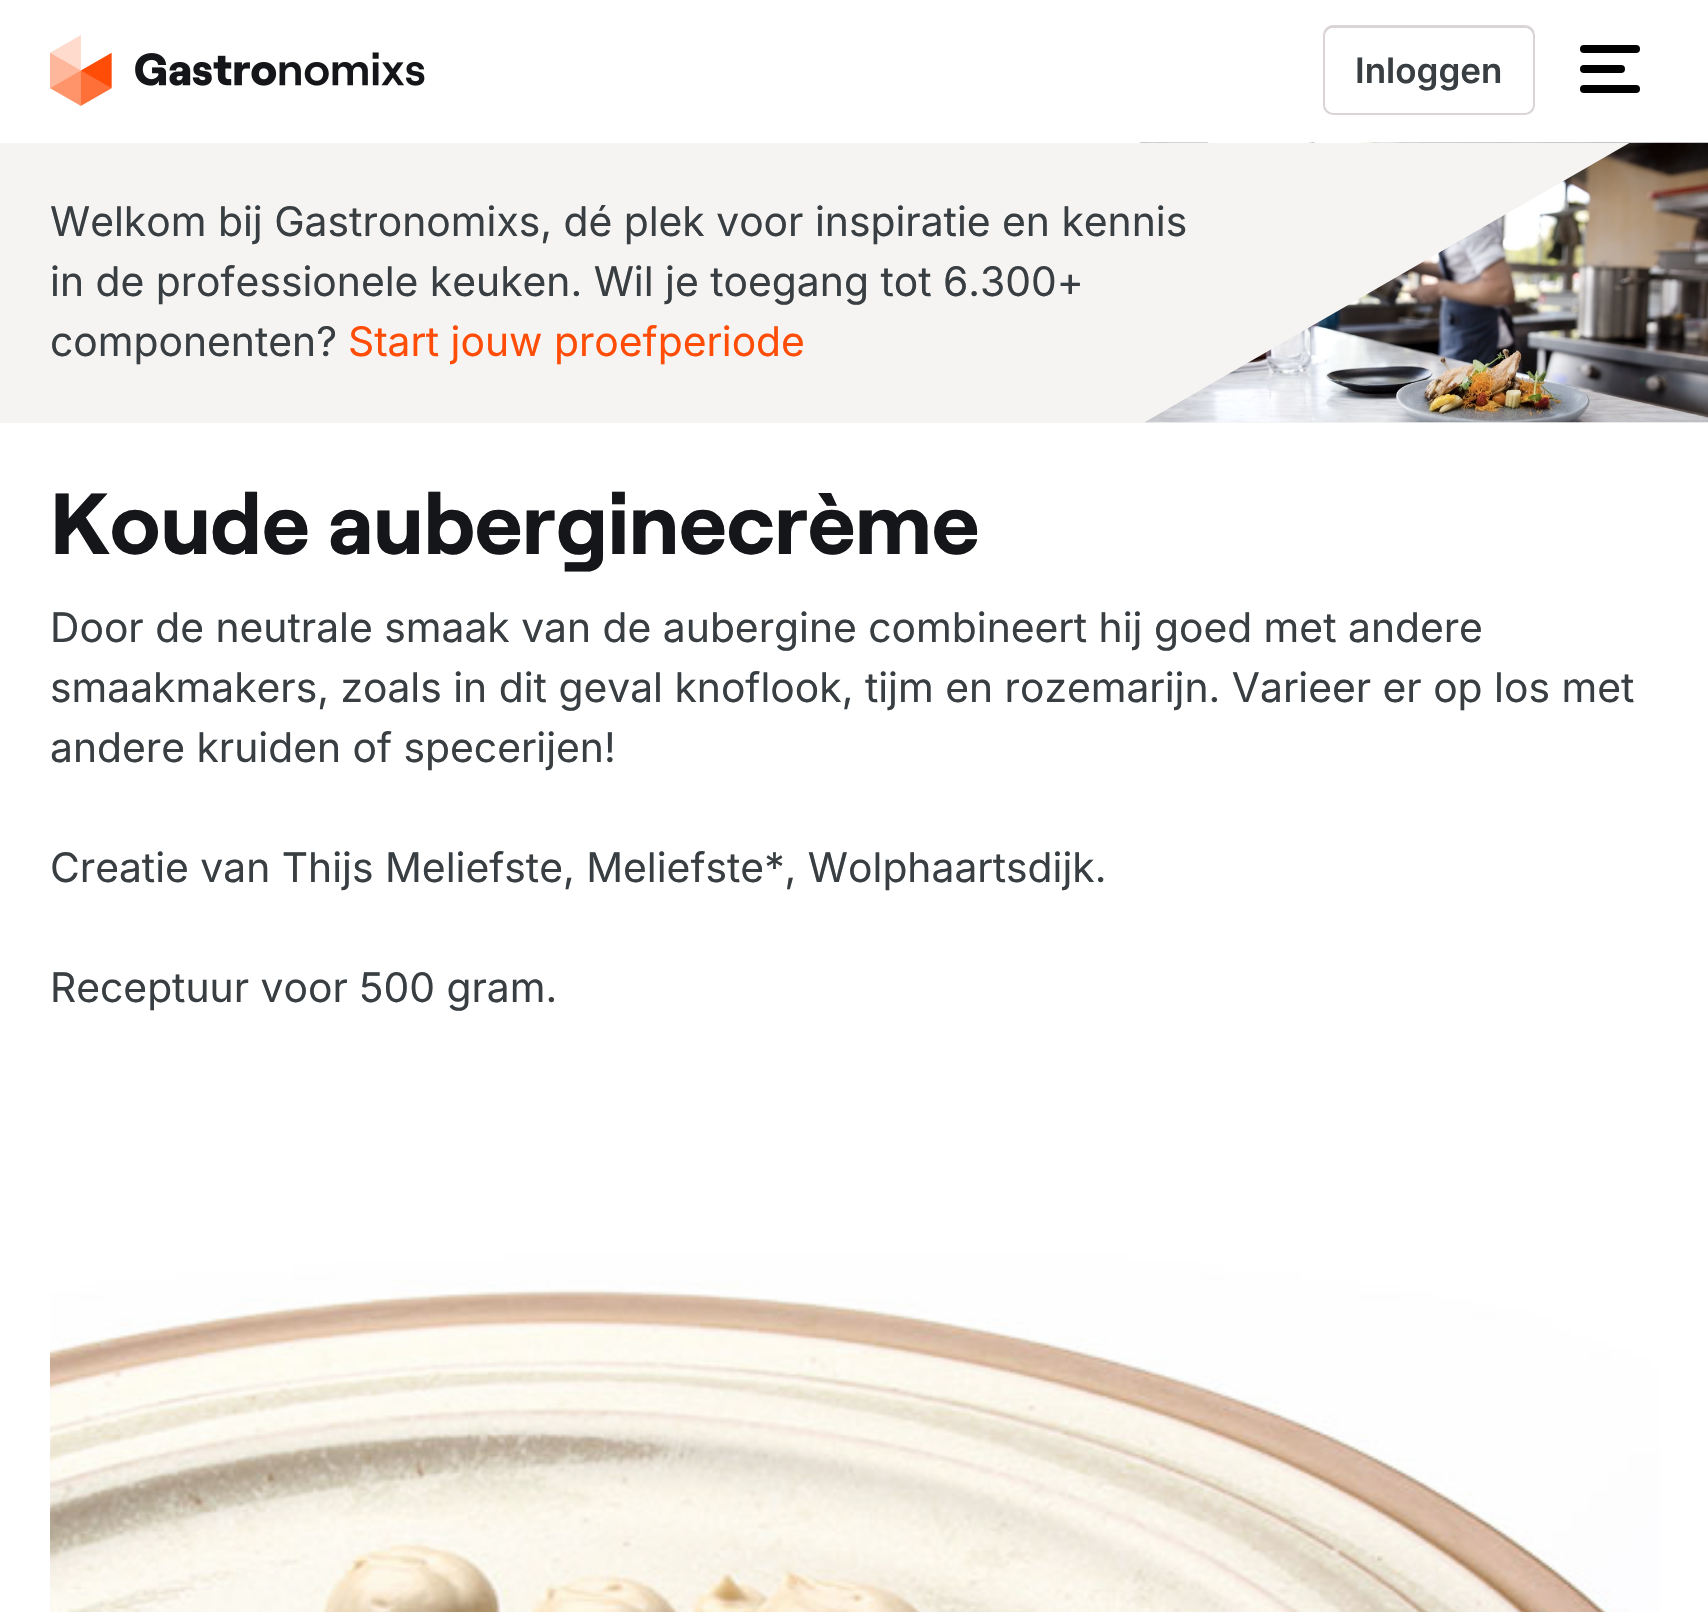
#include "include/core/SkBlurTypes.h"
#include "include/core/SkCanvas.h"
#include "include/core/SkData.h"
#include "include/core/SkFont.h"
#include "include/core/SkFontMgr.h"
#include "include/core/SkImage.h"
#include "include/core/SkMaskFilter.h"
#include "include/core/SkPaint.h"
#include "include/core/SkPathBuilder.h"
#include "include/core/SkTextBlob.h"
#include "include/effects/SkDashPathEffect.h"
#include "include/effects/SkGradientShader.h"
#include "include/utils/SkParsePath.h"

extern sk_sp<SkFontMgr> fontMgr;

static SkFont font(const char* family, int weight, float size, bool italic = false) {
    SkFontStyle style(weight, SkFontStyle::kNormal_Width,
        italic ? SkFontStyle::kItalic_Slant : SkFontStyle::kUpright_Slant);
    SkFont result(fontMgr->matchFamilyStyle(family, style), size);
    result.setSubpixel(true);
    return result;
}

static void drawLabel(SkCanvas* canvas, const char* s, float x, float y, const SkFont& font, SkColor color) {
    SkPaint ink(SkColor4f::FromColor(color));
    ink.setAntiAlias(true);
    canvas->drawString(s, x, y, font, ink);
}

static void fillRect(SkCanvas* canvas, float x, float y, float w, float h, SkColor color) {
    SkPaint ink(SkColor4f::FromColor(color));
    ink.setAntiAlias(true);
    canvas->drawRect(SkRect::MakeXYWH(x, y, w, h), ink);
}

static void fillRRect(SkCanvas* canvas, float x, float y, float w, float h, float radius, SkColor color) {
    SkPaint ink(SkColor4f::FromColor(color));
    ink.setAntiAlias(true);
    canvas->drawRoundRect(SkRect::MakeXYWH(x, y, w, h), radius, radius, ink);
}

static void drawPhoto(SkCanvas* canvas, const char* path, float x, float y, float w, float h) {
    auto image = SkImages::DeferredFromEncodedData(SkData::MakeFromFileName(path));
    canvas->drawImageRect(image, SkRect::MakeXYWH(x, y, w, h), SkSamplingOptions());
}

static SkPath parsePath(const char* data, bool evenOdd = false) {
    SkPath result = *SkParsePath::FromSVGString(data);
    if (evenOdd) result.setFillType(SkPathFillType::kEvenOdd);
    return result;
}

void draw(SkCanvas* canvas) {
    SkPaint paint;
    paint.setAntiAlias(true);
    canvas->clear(0xFFFFFFFF);
    drawPhoto(canvas, "assets/img1.png", 50, 35, 375, 71);
    paint.setStroke(true);
    paint.setStrokeWidth(3);
    paint.setColor(0xFFDAD5D4);
    canvas->drawRoundRect(SkRect::MakeXYWH(1324.5f, 26.5f, 209, 87), 8.5f, 8.5f, paint);
    paint.setStroke(false);
    paint.setColor(0xFFFFFFFF);
    canvas->drawPath(parsePath("M1333 28C1329 28 1325 32 1325 36V105C1325 109 1329 113 1333 113H1525C1529 113 1533 109 1533 105V36C1533 32 1529 28 1525 28Z"), paint);
    SkFont font1 = font("Inter", 600, 35);
    drawLabel(canvas, "Inloggen", 1355, 83, font1, 0xFF383E41);
    fillRRect(canvas, 1580, 45, 60, 8, 4, 0xFF000000);
    fillRRect(canvas, 1580, 65, 45, 8, 4, 0xFF000000);
    fillRRect(canvas, 1580, 85, 60, 8, 4, 0xFF000000);
    fillRect(canvas, 0, 143, 1708, 280, 0xFFF5F4F2);
    drawPhoto(canvas, "assets/img2.png", 1140, 142, 568, 281);
    canvas->save();
    canvas->clipRect(SkRect::MakeXYWH(1140, 143, 498, 280));
    paint.setColor(0xFFF5F4F2);
    canvas->drawPath(parsePath("M1027 490L1704 100L1027-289L1138 63V477Z", true), paint);
    canvas->restore();
    SkFont font2 = font("Inter", 400, 40.8f);
    drawLabel(canvas, "Welkom bij Gastronomixs, dé plek voor inspiratie en kennis", 50, 236, font2, 0xFF383E41);
    drawLabel(canvas, "in de professionele keuken. Wil je toegang tot 6.300+", 50, 296, font2, 0xFF383E41);
    drawLabel(canvas, "componenten?", 50, 356, font2, 0xFF383E41);
    drawLabel(canvas, "Start jouw proefperiode", 348, 356, font2, 0xFFFF4C07);
    SkFont font3 = font("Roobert", 700, 86.25f);
    drawLabel(canvas, "Koude auberginecrème", 50, 554, font3, 0xFF151619);
    drawLabel(canvas, "Door de neutrale smaak van de aubergine combineert hij goed met andere", 50, 642, font2, 0xFF383E41);
    drawLabel(canvas, "smaakmakers, zoals in dit geval knoflook, tijm en rozemarijn. Varieer er op los met", 50, 702, font2, 0xFF383E41);
    drawLabel(canvas, "andere kruiden of specerijen!", 50, 762, font2, 0xFF383E41);
    drawLabel(canvas, "Creatie van Thijs Meliefste, Meliefste*, Wolphaartsdijk.", 50, 882, font2, 0xFF383E41);
    drawLabel(canvas, "Receptuur voor 500 gram.", 50, 1002, font2, 0xFF383E41);
    drawPhoto(canvas, "assets/img3.png", 50, 1068, 1610, 544);
}
